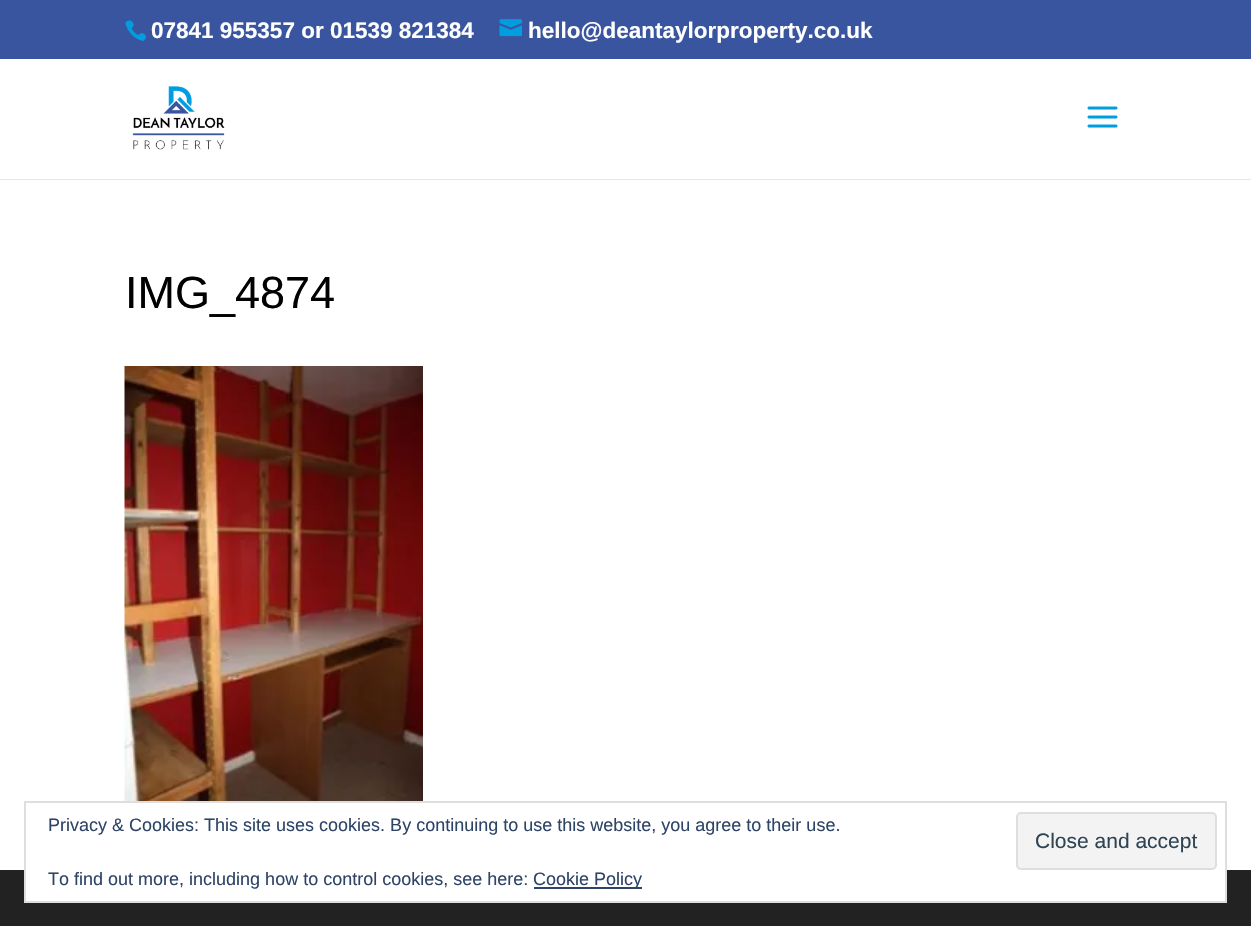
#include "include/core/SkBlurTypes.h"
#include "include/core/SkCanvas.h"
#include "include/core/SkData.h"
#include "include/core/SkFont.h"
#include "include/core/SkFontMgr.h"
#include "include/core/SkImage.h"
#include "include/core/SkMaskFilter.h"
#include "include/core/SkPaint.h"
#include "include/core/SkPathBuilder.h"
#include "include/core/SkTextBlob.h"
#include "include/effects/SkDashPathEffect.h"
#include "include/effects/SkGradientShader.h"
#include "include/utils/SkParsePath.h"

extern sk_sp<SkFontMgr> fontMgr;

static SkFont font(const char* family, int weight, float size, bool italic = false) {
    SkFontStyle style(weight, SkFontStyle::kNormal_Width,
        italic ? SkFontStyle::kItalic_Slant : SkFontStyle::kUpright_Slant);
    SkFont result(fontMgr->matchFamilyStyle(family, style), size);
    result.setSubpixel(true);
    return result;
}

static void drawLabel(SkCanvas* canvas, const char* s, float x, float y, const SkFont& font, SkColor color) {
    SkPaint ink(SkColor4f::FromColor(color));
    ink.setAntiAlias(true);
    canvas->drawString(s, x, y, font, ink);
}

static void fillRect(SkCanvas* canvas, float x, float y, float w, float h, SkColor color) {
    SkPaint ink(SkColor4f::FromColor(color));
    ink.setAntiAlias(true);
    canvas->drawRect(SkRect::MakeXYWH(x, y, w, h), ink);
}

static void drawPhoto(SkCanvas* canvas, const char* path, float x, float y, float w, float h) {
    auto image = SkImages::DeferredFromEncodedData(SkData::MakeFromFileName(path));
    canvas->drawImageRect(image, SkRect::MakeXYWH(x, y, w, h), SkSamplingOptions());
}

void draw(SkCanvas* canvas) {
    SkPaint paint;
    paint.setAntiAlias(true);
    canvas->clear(0xFFFFFFFF);
    fillRect(canvas, 0, 0, 1251, 59, 0xFF39559F);
    drawPhoto(canvas, "assets/img1.png", 125, 20, 21, 21);
    SkFont font1 = font("Liberation Sans", 700, 22.5f);
    drawLabel(canvas, "07841 955357 or 01539 821384", 151, 38, font1, 0xFFFFFFFF);
    drawPhoto(canvas, "assets/img2.png", 499, 19, 23, 18);
    drawLabel(canvas, "hello@deantaylorproperty.co.uk", 528, 38, font1, 0xFFFFFFFF);
    fillRect(canvas, 0, 179, 1251, 1, 0xFFE6E6E6);
    drawPhoto(canvas, "assets/img3.png", 132, 86, 93, 64);
    drawPhoto(canvas, "assets/img4.png", 1087, 106, 31, 22);
    SkFont font2 = font("Liberation Sans", 400, 45);
    drawLabel(canvas, "IMG_4874", 125, 308, font2, 0xFF000000);
    drawPhoto(canvas, "assets/img5.png", 124, 366, 299, 435);
    fillRect(canvas, 0, 870, 1251, 56, 0xFF222222);
    fillRect(canvas, 26, 870, 1199, 31, 0xFFFFFFFF);
    paint.setStroke(true);
    paint.setStrokeWidth(2);
    paint.setColor(0xFFDEDEDE);
    canvas->drawRect(SkRect::MakeXYWH(25, 802, 1201, 100), paint);
    SkFont font3 = font("Liberation Sans", 400, 18);
    drawLabel(canvas, "Privacy & Cookies: This site uses cookies. By continuing to use this website, you agree to their use.", 48, 831, font3, 0xFF2E4467);
    paint.setStroke(false);
    paint.setColor(0xFFF3F3F3);
    canvas->drawRoundRect(SkRect::MakeXYWH(1017, 813, 199, 56), 4, 4, paint);
    paint.setStroke(true);
    paint.setColor(0xFFDEDEDE);
    canvas->drawRoundRect(SkRect::MakeXYWH(1017, 813, 199, 56), 4, 4, paint);
    SkFont font4 = font("Liberation Sans", 400, 21);
    drawLabel(canvas, "Close and accept", 1035, 848, font4, 0xFF2E4453);
    drawLabel(canvas, "To find out more, including how to control cookies, see here:", 48, 885, font3, 0xFF2E4467);
    fillRect(canvas, 534, 887, 108, 2, 0xFF2E4467);
    drawLabel(canvas, "Cookie Policy", 533, 885, font3, 0xFF2E4467);
}
